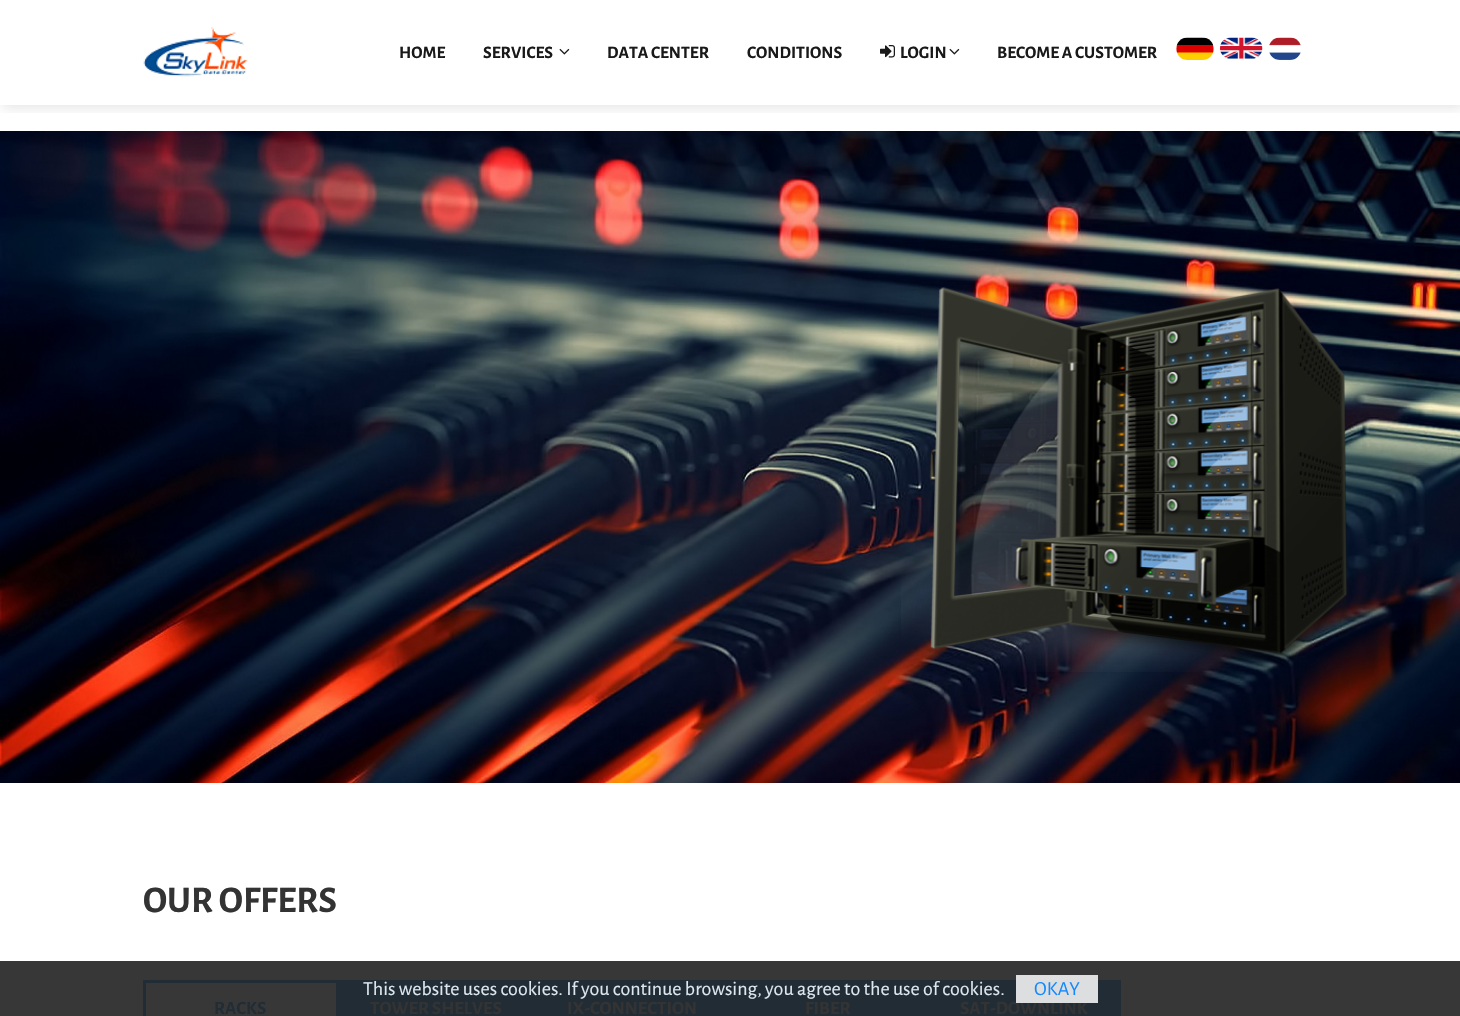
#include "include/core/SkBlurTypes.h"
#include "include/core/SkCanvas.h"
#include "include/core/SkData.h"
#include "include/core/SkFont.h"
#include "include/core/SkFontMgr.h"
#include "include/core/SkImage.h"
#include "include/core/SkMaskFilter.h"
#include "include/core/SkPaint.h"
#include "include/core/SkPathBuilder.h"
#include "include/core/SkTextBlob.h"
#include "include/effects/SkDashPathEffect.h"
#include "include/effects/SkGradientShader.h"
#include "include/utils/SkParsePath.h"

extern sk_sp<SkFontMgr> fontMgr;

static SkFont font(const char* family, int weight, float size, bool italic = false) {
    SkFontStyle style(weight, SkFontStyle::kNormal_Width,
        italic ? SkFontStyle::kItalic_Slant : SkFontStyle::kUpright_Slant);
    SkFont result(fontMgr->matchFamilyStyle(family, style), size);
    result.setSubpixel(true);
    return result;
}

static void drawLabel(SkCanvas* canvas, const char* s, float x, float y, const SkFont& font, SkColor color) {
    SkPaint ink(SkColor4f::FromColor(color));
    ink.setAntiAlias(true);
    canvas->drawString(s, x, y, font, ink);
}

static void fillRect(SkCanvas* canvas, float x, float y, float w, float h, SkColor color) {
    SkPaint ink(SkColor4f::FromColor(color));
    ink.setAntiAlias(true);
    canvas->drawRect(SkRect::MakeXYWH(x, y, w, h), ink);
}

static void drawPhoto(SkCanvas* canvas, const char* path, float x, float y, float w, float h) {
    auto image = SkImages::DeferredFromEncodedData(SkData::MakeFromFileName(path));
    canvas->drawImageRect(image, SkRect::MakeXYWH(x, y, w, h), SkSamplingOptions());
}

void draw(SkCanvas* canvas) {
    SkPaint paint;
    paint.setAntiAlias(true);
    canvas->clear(0xFFFFFFFF);
    fillRect(canvas, 0, 961, 1460, 55, 0xFF373737);
    canvas->save();
    canvas->clipRect(SkRect::MakeXYWH(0, 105, 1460, 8));
    paint.setColor(0x1A000000);
    paint.setMaskFilter(SkMaskFilter::MakeBlur(kNormal_SkBlurStyle, 6));
    canvas->drawRect(SkRect::MakeXYWH(3, 3, 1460, 105), paint);
    paint.setMaskFilter(nullptr);
    canvas->restore();
    drawPhoto(canvas, "assets/img1.png", 143, 26, 105, 53);
    SkFont font1 = font("Alegreya Sans", 700, 17.5f);
    drawLabel(canvas, "HOME", 399, 58, font1, 0xFF191919);
    drawLabel(canvas, "SERVICES", 483, 58, font1, 0xFF191919);
    drawPhoto(canvas, "assets/img2.png", 559, 48, 11, 7);
    drawLabel(canvas, "DATA CENTER", 607, 58, font1, 0xFF191919);
    drawLabel(canvas, "CONDITIONS", 747, 58, font1, 0xFF191919);
    drawPhoto(canvas, "assets/img3.png", 880, 45, 15, 13);
    drawLabel(canvas, "LOGIN", 900, 58, font1, 0xFF191919);
    drawPhoto(canvas, "assets/img2.png", 949, 48, 11, 7);
    drawLabel(canvas, "BECOME A CUSTOMER", 997, 58, font1, 0xFF191919);
    drawPhoto(canvas, "assets/img4.png", 1176, 37, 38, 23);
    drawPhoto(canvas, "assets/img5.png", 1220, 37, 43, 22);
    drawPhoto(canvas, "assets/img6.png", 1269, 37, 32, 23);
    drawPhoto(canvas, "assets/img7.png", 0, 131, 1460, 652);
    drawPhoto(canvas, "assets/img8.png", 901, 287, 446, 385);
    SkFont font2 = font("Alegreya Sans", 700, 37.5f);
    drawLabel(canvas, "OUR OFFERS", 143, 912, font2, 0xFF333333);
    paint.setStroke(true);
    paint.setStrokeWidth(3);
    paint.setColor(0xFF222C35);
    canvas->drawRect(SkRect::MakeXYWH(144.5f, 981.5f, 193, 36), paint);
    SkFont font3 = font("Alegreya Sans", 700, 18.75f);
    drawLabel(canvas, "RACKS", 214, 1014, font3, 0xFF222C35);
    fillRect(canvas, 339, 980, 782, 36, 0xFF222C35);
    drawLabel(canvas, "TOWER SHELVES", 370, 1014, font3, 0xFF333333);
    drawLabel(canvas, "IX-CONNECTION", 567, 1014, font3, 0xFF333333);
    drawLabel(canvas, "FIBER", 805, 1014, font3, 0xFF333333);
    drawLabel(canvas, "SAT-DOWNLINK", 960, 1014, font3, 0xFF333333);
    SkFont font4 = font("Alegreya Sans", 400, 20);
    drawLabel(canvas, "This website uses cookies. If you continue browsing, you agree to the use of cookies.", 363, 995, font4, 0xFFDDE7F0);
    fillRect(canvas, 1016, 975, 82, 28, 0xE6F1F1F1);
    drawLabel(canvas, "OKAY", 1034, 995, font4, 0xFF1389FD);
}
